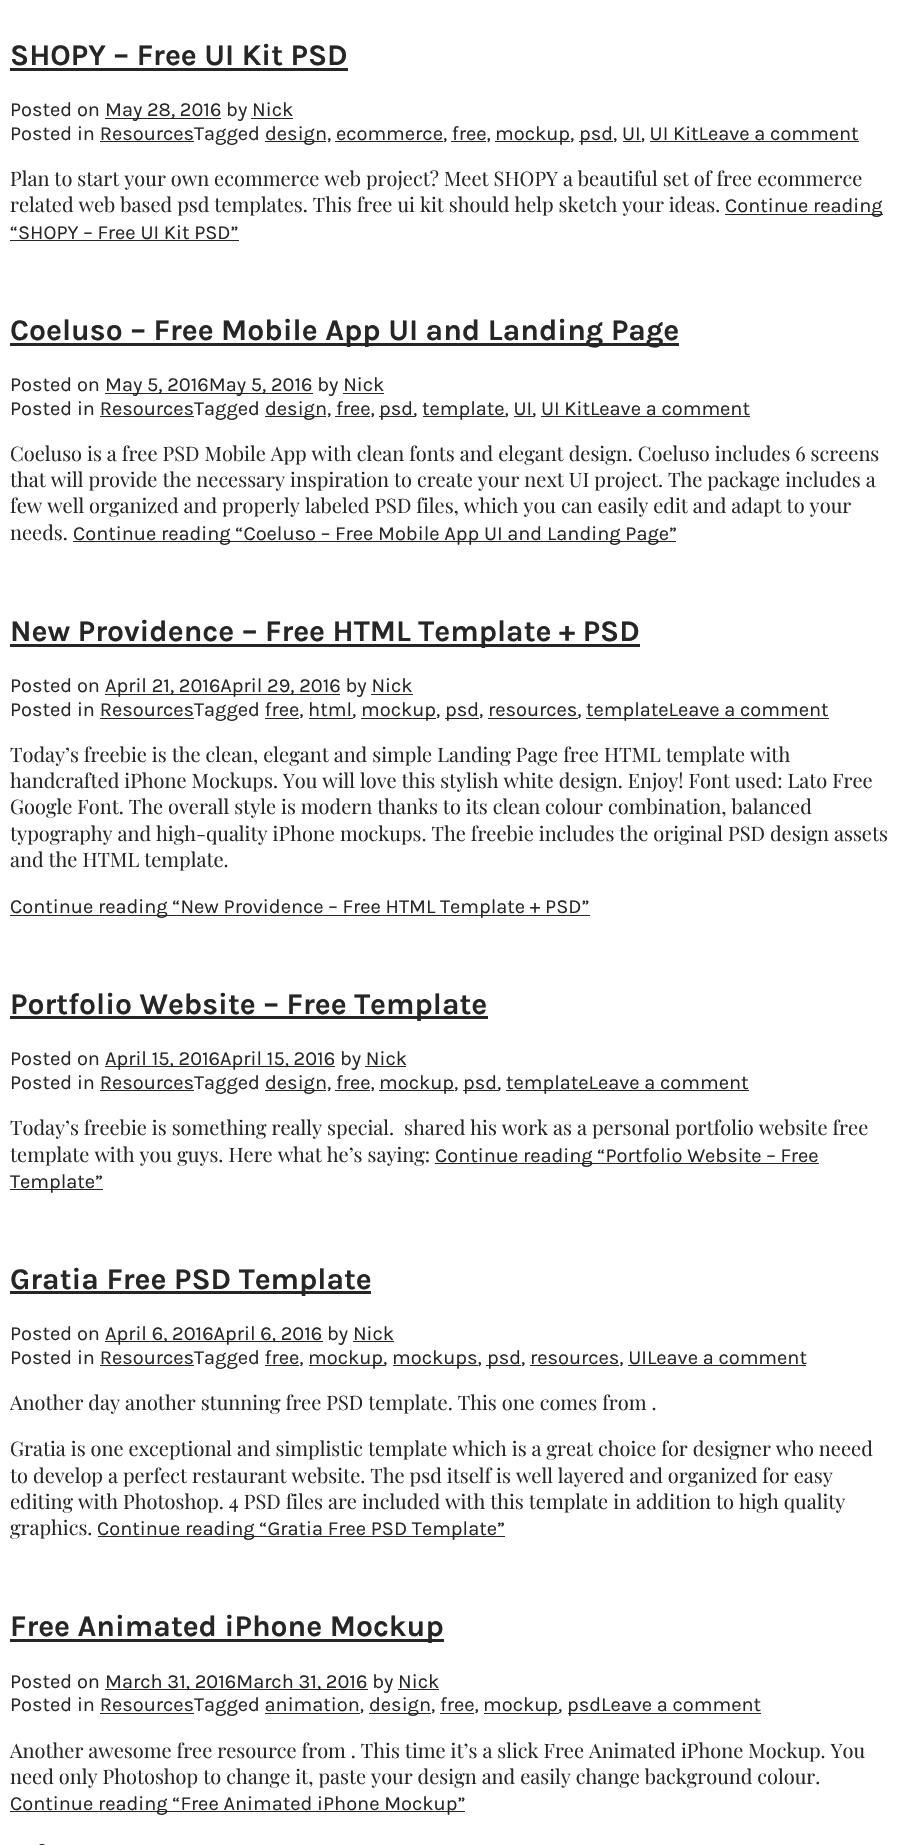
#include "include/core/SkBlurTypes.h"
#include "include/core/SkCanvas.h"
#include "include/core/SkData.h"
#include "include/core/SkFont.h"
#include "include/core/SkFontMgr.h"
#include "include/core/SkImage.h"
#include "include/core/SkMaskFilter.h"
#include "include/core/SkPaint.h"
#include "include/core/SkPathBuilder.h"
#include "include/core/SkTextBlob.h"
#include "include/effects/SkDashPathEffect.h"
#include "include/effects/SkGradientShader.h"
#include "include/utils/SkParsePath.h"

extern sk_sp<SkFontMgr> fontMgr;

static SkFont font(const char* family, int weight, float size, bool italic = false) {
    SkFontStyle style(weight, SkFontStyle::kNormal_Width,
        italic ? SkFontStyle::kItalic_Slant : SkFontStyle::kUpright_Slant);
    SkFont result(fontMgr->matchFamilyStyle(family, style), size);
    result.setSubpixel(true);
    return result;
}

static void drawLabel(SkCanvas* canvas, const char* s, float x, float y, const SkFont& font, SkColor color) {
    SkPaint ink(SkColor4f::FromColor(color));
    ink.setAntiAlias(true);
    canvas->drawString(s, x, y, font, ink);
}

static void fillRect(SkCanvas* canvas, float x, float y, float w, float h, SkColor color) {
    SkPaint ink(SkColor4f::FromColor(color));
    ink.setAntiAlias(true);
    canvas->drawRect(SkRect::MakeXYWH(x, y, w, h), ink);
}

static void fillRRect(SkCanvas* canvas, float x, float y, float w, float h, float radius, SkColor color) {
    SkPaint ink(SkColor4f::FromColor(color));
    ink.setAntiAlias(true);
    canvas->drawRoundRect(SkRect::MakeXYWH(x, y, w, h), radius, radius, ink);
}

void draw(SkCanvas* canvas) {
    SkPaint paint;
    paint.setAntiAlias(true);
    canvas->clear(0xFFFFFFFF);
    SkFont font1 = font("Karla", 700, 30);
    drawLabel(canvas, "SHOPY – Free UI Kit PSD", 10, 65, font1, 0xFF262626);
    fillRect(canvas, 10, 68, 338, 3, 0xFF262626);
    SkFont font2 = font("Karla", 400, 20);
    drawLabel(canvas, "Posted on", 10, 116, font2, 0xFF262626);
    fillRect(canvas, 105, 118, 116, 1, 0xFF262626);
    drawLabel(canvas, "May 28, 2016 by Nick", 105, 116, font2, 0xFF262626);
    fillRect(canvas, 251, 118, 42, 1, 0xFF262626);
    drawLabel(canvas, "Posted in ResourcesTagged", 10, 140, font2, 0xFF262626);
    fillRect(canvas, 100, 141, 94, 1, 0xFF262626);
    fillRect(canvas, 265, 141, 61, 1, 0xFF262626);
    drawLabel(canvas, "design, ecommerce, free,", 265, 140, font2, 0xFF262626);
    fillRect(canvas, 335, 141, 108, 1, 0xFF262626);
    fillRect(canvas, 451, 141, 35, 1, 0xFF262626);
    fillRect(canvas, 495, 141, 75, 1, 0xFF262626);
    drawLabel(canvas, "mockup,", 495, 140, font2, 0xFF262626);
    fillRect(canvas, 579, 141, 34, 1, 0xFF262626);
    drawLabel(canvas, "psd, UI, UI KitLeave a comment", 579, 140, font2, 0xFF262626);
    fillRect(canvas, 623, 141, 18, 1, 0xFF262626);
    fillRect(canvas, 650, 141, 209, 1, 0xFF262626);
    SkFont font3 = font("Playfair Display", 400, 20);
    drawLabel(canvas, "Plan to start your own ecommerce web project? Meet SHOPY a beautiful set of free ecommerce", 10, 186, font3, 0xFF262626);
    drawLabel(canvas, "related web based psd templates. This free ui kit should help sketch your ideas.", 10, 212, font3, 0xFF262626);
    fillRect(canvas, 725, 214, 158, 1, 0xFF262626);
    drawLabel(canvas, "Continue reading", 725, 212, font2, 0xFF262626);
    drawLabel(canvas, "“SHOPY – Free UI Kit PSD”", 10, 239, font2, 0xFF262626);
    fillRect(canvas, 10, 240, 229, 1, 0xFF262626);
    fillRect(canvas, 10, 343, 669, 3, 0xFF262626);
    drawLabel(canvas, "Coeluso – Free Mobile App UI and Landing Page", 10, 340, font1, 0xFF262626);
    drawLabel(canvas, "Posted on", 10, 391, font2, 0xFF262626);
    fillRect(canvas, 105, 393, 208, 1, 0xFF262626);
    drawLabel(canvas, "May 5, 2016May 5, 2016 by Nick", 105, 391, font2, 0xFF262626);
    fillRect(canvas, 343, 393, 41, 1, 0xFF262626);
    drawLabel(canvas, "Posted in ResourcesTagged", 10, 415, font2, 0xFF262626);
    fillRect(canvas, 100, 416, 94, 1, 0xFF262626);
    fillRect(canvas, 265, 416, 61, 1, 0xFF262626);
    drawLabel(canvas, "design, free,", 265, 415, font2, 0xFF262626);
    fillRect(canvas, 335, 416, 35, 1, 0xFF262626);
    fillRect(canvas, 379, 416, 35, 1, 0xFF262626);
    drawLabel(canvas, "psd,", 379, 415, font2, 0xFF262626);
    fillRect(canvas, 423, 416, 82, 1, 0xFF262626);
    drawLabel(canvas, "template, UI", 422, 415, font2, 0xFF262626);
    fillRect(canvas, 514, 416, 19, 1, 0xFF262626);
    drawLabel(canvas, ", UI KitLeave a comment", 532, 415, font2, 0xFF262626);
    fillRect(canvas, 541, 416, 209, 1, 0xFF262626);
    drawLabel(canvas, "Coeluso is a free PSD Mobile App with clean fonts and elegant design. Coeluso includes 6 screens", 10, 461, font3, 0xFF262626);
    drawLabel(canvas, "that will provide the necessary inspiration to create your next UI project. The package includes a", 10, 487, font3, 0xFF262626);
    drawLabel(canvas, "few well organized and properly labeled PSD files, which you can easily edit and adapt to your", 10, 513, font3, 0xFF262626);
    drawLabel(canvas, "needs.", 10, 540, font3, 0xFF262626);
    fillRect(canvas, 73, 541, 603, 1, 0xFF262626);
    drawLabel(canvas, "Continue reading “Coeluso – Free Mobile App UI and Landing Page”", 73, 540, font2, 0xFF262626);
    fillRect(canvas, 10, 644, 630, 3, 0xFF262626);
    drawLabel(canvas, "New Providence – Free HTML Template + PSD", 10, 641, font1, 0xFF262626);
    drawLabel(canvas, "Posted on", 10, 692, font2, 0xFF262626);
    fillRect(canvas, 105, 694, 235, 1, 0xFF262626);
    drawLabel(canvas, "April 21, 2016April 29, 2016 by Nick", 105, 692, font2, 0xFF262626);
    fillRect(canvas, 371, 694, 42, 1, 0xFF262626);
    drawLabel(canvas, "Posted in ResourcesTagged free, html", 10, 716, font2, 0xFF262626);
    fillRect(canvas, 100, 718, 94, 1, 0xFF262626);
    fillRect(canvas, 309, 718, 44, 1, 0xFF262626);
    drawLabel(canvas, ",", 352, 716, font2, 0xFF262626);
    fillRect(canvas, 265, 718, 34, 1, 0xFF262626);
    fillRect(canvas, 361, 718, 75, 1, 0xFF262626);
    drawLabel(canvas, "mockup,", 361, 716, font2, 0xFF262626);
    fillRect(canvas, 445, 718, 34, 1, 0xFF262626);
    drawLabel(canvas, "psd, resources,", 445, 716, font2, 0xFF262626);
    fillRect(canvas, 488, 718, 90, 1, 0xFF262626);
    fillRect(canvas, 586, 718, 243, 1, 0xFF262626);
    drawLabel(canvas, "templateLeave a comment", 586, 716, font2, 0xFF262626);
    drawLabel(canvas, "Today’s freebie is the clean, elegant and simple Landing Page free HTML template with", 10, 762, font3, 0xFF262626);
    drawLabel(canvas, "handcrafted iPhone Mockups. You will love this stylish white design. Enjoy! Font used: Lato Free", 10, 788, font3, 0xFF262626);
    drawLabel(canvas, "Google Font. The overall style is modern thanks to its clean colour combination, balanced", 10, 814, font3, 0xFF262626);
    drawLabel(canvas, "typography and high-quality iPhone mockups. The freebie includes the original PSD design assets", 10, 841, font3, 0xFF262626);
    drawLabel(canvas, "and the HTML template.", 10, 867, font3, 0xFF262626);
    fillRect(canvas, 10, 915, 580, 1, 0xFF262626);
    drawLabel(canvas, "Continue reading “New Providence – Free HTML Template + PSD”", 10, 913, font2, 0xFF262626);
    fillRect(canvas, 10, 1016, 478, 3, 0xFF262626);
    drawLabel(canvas, "Portfolio Website – Free Template", 10, 1014, font1, 0xFF262626);
    drawLabel(canvas, "Posted on", 10, 1065, font2, 0xFF262626);
    fillRect(canvas, 105, 1066, 230, 1, 0xFF262626);
    drawLabel(canvas, "April 15, 2016April 15, 2016 by Nick", 105, 1065, font2, 0xFF262626);
    fillRect(canvas, 365, 1066, 41, 1, 0xFF262626);
    drawLabel(canvas, "Posted in ResourcesTagged", 10, 1089, font2, 0xFF262626);
    fillRect(canvas, 100, 1090, 94, 1, 0xFF262626);
    fillRect(canvas, 265, 1090, 61, 1, 0xFF262626);
    drawLabel(canvas, "design, free,", 265, 1089, font2, 0xFF262626);
    fillRect(canvas, 335, 1090, 35, 1, 0xFF262626);
    fillRect(canvas, 379, 1090, 75, 1, 0xFF262626);
    drawLabel(canvas, "mockup,", 379, 1089, font2, 0xFF262626);
    fillRect(canvas, 463, 1090, 35, 1, 0xFF262626);
    drawLabel(canvas, "psd,", 463, 1089, font2, 0xFF262626);
    fillRect(canvas, 506, 1090, 243, 1, 0xFF262626);
    drawLabel(canvas, "templateLeave a comment", 506, 1089, font2, 0xFF262626);
    drawLabel(canvas, "Today’s freebie is something really special.  shared his work as a personal portfolio website free", 10, 1135, font3, 0xFF262626);
    drawLabel(canvas, "template with you guys. Here what he’s saying:", 10, 1162, font3, 0xFF262626);
    fillRect(canvas, 435, 1163, 384, 1, 0xFF262626);
    drawLabel(canvas, "Continue reading “Portfolio Website – Free", 435, 1162, font2, 0xFF262626);
    fillRect(canvas, 10, 1189, 93, 1, 0xFF262626);
    drawLabel(canvas, "Template”", 10, 1188, font2, 0xFF262626);
    fillRect(canvas, 10, 1291, 361, 3, 0xFF262626);
    drawLabel(canvas, "Gratia Free PSD Template", 10, 1289, font1, 0xFF262626);
    drawLabel(canvas, "Posted on", 10, 1340, font2, 0xFF262626);
    fillRect(canvas, 105, 1341, 218, 1, 0xFF262626);
    drawLabel(canvas, "April 6, 2016April 6, 2016 by Nick", 105, 1340, font2, 0xFF262626);
    fillRect(canvas, 353, 1341, 41, 1, 0xFF262626);
    drawLabel(canvas, "Posted in ResourcesTagged free,", 10, 1364, font2, 0xFF262626);
    fillRect(canvas, 100, 1365, 94, 1, 0xFF262626);
    fillRect(canvas, 309, 1365, 75, 1, 0xFF262626);
    drawLabel(canvas, "mockup,", 308, 1364, font2, 0xFF262626);
    fillRect(canvas, 265, 1365, 34, 1, 0xFF262626);
    fillRect(canvas, 393, 1365, 85, 1, 0xFF262626);
    drawLabel(canvas, "mockups,", 392, 1364, font2, 0xFF262626);
    fillRect(canvas, 486, 1365, 35, 1, 0xFF262626);
    drawLabel(canvas, "psd, resources, UILeave a comment", 487, 1364, font2, 0xFF262626);
    fillRect(canvas, 530, 1365, 89, 1, 0xFF262626);
    fillRect(canvas, 628, 1365, 178, 1, 0xFF262626);
    drawLabel(canvas, "Another day another stunning free PSD template. This one comes from .", 10, 1410, font3, 0xFF262626);
    drawLabel(canvas, "Gratia is one exceptional and simplistic template which is a great choice for designer who neeed", 10, 1456, font3, 0xFF262626);
    drawLabel(canvas, "to develop a perfect restaurant website. The psd itself is well layered and organized for easy", 10, 1483, font3, 0xFF262626);
    drawLabel(canvas, "editing with Photoshop. 4 PSD files are included with this template in addition to high quality", 10, 1509, font3, 0xFF262626);
    drawLabel(canvas, "graphics.", 10, 1535, font3, 0xFF262626);
    fillRect(canvas, 98, 1536, 407, 1, 0xFF262626);
    drawLabel(canvas, "Continue reading “Gratia Free PSD Template”", 97, 1535, font2, 0xFF262626);
    fillRect(canvas, 10, 1639, 434, 3, 0xFF262626);
    drawLabel(canvas, "Free Animated iPhone Mockup", 10, 1636, font1, 0xFF262626);
    drawLabel(canvas, "Posted on", 10, 1688, font2, 0xFF262626);
    fillRect(canvas, 105, 1689, 263, 1, 0xFF262626);
    drawLabel(canvas, "March 31, 2016March 31, 2016 by Nick", 105, 1688, font2, 0xFF262626);
    fillRect(canvas, 398, 1689, 41, 1, 0xFF262626);
    drawLabel(canvas, "Posted in ResourcesTagged animation,", 10, 1711, font2, 0xFF262626);
    fillRect(canvas, 100, 1713, 94, 1, 0xFF262626);
    fillRect(canvas, 369, 1713, 62, 1, 0xFF262626);
    drawLabel(canvas, "design, free,", 369, 1711, font2, 0xFF262626);
    fillRect(canvas, 265, 1713, 95, 1, 0xFF262626);
    fillRect(canvas, 440, 1713, 34, 1, 0xFF262626);
    fillRect(canvas, 484, 1713, 75, 1, 0xFF262626);
    drawLabel(canvas, "mockup,", 483, 1711, font2, 0xFF262626);
    fillRect(canvas, 568, 1713, 193, 1, 0xFF262626);
    drawLabel(canvas, "psdLeave a comment", 567, 1711, font2, 0xFF262626);
    drawLabel(canvas, "Another awesome free resource from . This time it’s a slick Free Animated iPhone Mockup. You", 10, 1758, font3, 0xFF262626);
    drawLabel(canvas, "need only Photoshop to change it, paste your design and easily change background colour.", 10, 1784, font3, 0xFF262626);
    fillRect(canvas, 10, 1811, 455, 1, 0xFF262626);
    drawLabel(canvas, "Continue reading “Free Animated iPhone Mockup”", 10, 1810, font2, 0xFF262626);
    fillRRect(canvas, 39, 1844, 6, 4, 3, 0xFF262626);
}
